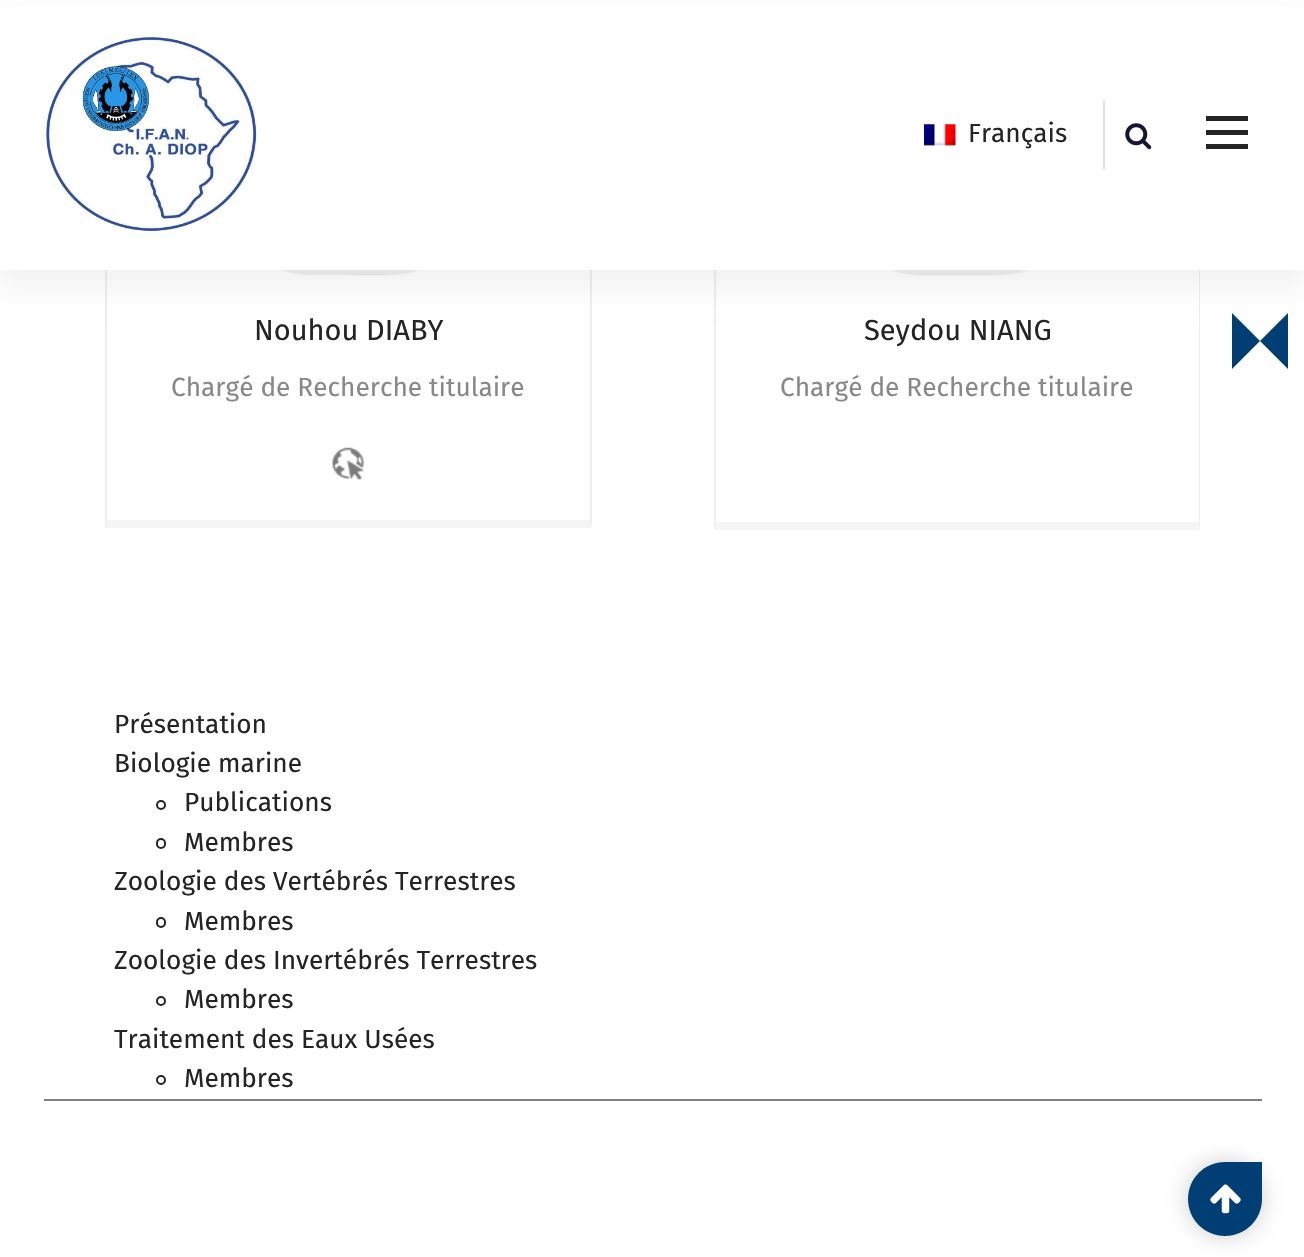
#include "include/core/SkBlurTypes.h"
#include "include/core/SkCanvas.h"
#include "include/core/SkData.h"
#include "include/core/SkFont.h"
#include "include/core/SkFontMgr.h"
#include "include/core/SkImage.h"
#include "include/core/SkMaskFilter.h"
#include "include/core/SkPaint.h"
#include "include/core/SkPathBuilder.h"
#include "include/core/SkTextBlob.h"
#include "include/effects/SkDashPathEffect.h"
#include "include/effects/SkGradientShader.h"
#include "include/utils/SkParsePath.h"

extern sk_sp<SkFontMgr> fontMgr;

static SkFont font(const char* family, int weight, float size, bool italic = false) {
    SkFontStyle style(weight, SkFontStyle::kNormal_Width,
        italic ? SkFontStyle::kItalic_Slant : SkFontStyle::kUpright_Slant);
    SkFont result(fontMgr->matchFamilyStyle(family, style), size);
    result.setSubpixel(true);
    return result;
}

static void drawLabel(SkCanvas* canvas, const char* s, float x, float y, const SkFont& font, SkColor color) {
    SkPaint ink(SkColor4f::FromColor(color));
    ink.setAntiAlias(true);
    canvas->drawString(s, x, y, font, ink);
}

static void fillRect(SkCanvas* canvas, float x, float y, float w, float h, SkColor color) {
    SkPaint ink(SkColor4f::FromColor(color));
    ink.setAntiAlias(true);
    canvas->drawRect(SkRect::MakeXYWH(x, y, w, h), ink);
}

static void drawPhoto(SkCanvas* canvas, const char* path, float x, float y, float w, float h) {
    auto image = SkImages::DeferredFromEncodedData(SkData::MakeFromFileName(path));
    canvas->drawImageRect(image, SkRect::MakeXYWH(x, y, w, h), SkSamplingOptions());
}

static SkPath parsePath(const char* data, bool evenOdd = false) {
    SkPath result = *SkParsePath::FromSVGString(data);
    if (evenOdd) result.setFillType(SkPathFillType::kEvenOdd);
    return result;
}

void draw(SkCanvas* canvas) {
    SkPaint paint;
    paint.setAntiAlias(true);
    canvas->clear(0xFFFFFFFF);
    paint.setColor(0xFFEEEEEE);
    canvas->drawPath(parsePath("M592 124V528L590 520V133Z"), paint);
    paint.setColor(0xFFF5F5F5);
    canvas->drawPath(parsePath("M592 528H105L107 520H590Z"), paint);
    paint.setColor(0xFFEEEEEE);
    canvas->drawPath(parsePath("M105 528V124L107 133V520Z"), paint);
    paint.setColor(0x0D000000);
    paint.setMaskFilter(SkMaskFilter::MakeBlur(kNormal_SkBlurStyle, 1));
    canvas->drawRoundRect(SkRect::MakeXYWH(231, 12, 242, 263), 82, 82, paint);
    paint.setMaskFilter(nullptr);
    drawPhoto(canvas, "assets/img4.png", 284, 270, 129, 5);
    paint.setStroke(true);
    paint.setStrokeWidth(10.5f);
    paint.setColor(0xFFEEEEEE);
    canvas->drawPath(parsePath("M309.5 17.5H387C429.5 17.5 464 55 464 101.5V185.5C464 232 429.5 269.5 387 269.5H309.5C267 269.5 233 232 233 185.5V101.5C233 55 267 17.5 309.5 17.5Z"), paint);
    paint.setStroke(false);
    canvas->drawPath(parsePath("M1200 124V530L1199 522V133Z"), paint);
    paint.setColor(0xFFF5F5F5);
    canvas->drawPath(parsePath("M1200 530H714L716 522H1199Z"), paint);
    paint.setColor(0xFFEEEEEE);
    canvas->drawPath(parsePath("M714 530V124L716 133V522Z"), paint);
    paint.setColor(0x0D000000);
    paint.setMaskFilter(SkMaskFilter::MakeBlur(kNormal_SkBlurStyle, 1));
    canvas->drawRoundRect(SkRect::MakeXYWH(840, 12, 242, 263), 82, 82, paint);
    paint.setMaskFilter(nullptr);
    drawPhoto(canvas, "assets/img6.png", 893, 270, 129, 5);
    paint.setStroke(true);
    paint.setColor(0xFFEEEEEE);
    canvas->drawPath(parsePath("M918.5 17.5H996C1038.5 17.5 1073 55 1073 101.5V185.5C1073 232 1038.5 269.5 996 269.5H918.5C876 269.5 842 232 842 185.5V101.5C842 55 876 17.5 918.5 17.5Z"), paint);
    paint.setStroke(false);
    paint.setColor(0x0D000000);
    paint.setMaskFilter(SkMaskFilter::MakeBlur(kNormal_SkBlurStyle, 13));
    canvas->drawRect(SkRect::MakeXYWH(0, 16, 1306, 271), paint);
    paint.setMaskFilter(nullptr);
    fillRect(canvas, 0, 5, 1304, 265, 0xFFFFFFFF);
    drawPhoto(canvas, "assets/img1.png", 46, 37, 211, 195);
    drawPhoto(canvas, "assets/img2.png", 924, 124, 32, 22);
    SkFont font1 = font("Fira Sans", 400, 26.25f);
    drawLabel(canvas, "Français", 968, 142, font1, 0xFF242424);
    fillRect(canvas, 1103, 100, 2, 70, 0xFFE1E1E1);
    drawPhoto(canvas, "assets/img3.png", 1125, 123, 27, 27);
    fillRect(canvas, 1206, 116, 42, 5, 0xFF242424);
    fillRect(canvas, 1206, 130, 42, 5, 0xFF242424);
    fillRect(canvas, 1206, 144, 42, 5, 0xFF242424);
    paint.setColor(0xFF003E74);
    canvas->drawPath(parsePath("M1288 313V369L1260 341ZM1232 369V313L1260 341Z"), paint);
    SkFont font2 = font("Fira Sans", 400, 29);
    drawLabel(canvas, "Nouhou DIABY", 254, 340, font2, 0xFF242424);
    drawLabel(canvas, "Chargé de Recherche titulaire", 171, 396, font1, 0xFF888888);
    drawPhoto(canvas, "assets/img5.png", 332, 447, 33, 33);
    drawLabel(canvas, "Seydou NIANG", 864, 340, font2, 0xFF242424);
    drawLabel(canvas, "Chargé de Recherche titulaire", 780, 396, font1, 0xFF888888);
    fillRect(canvas, 44, 1099, 1218, 2, 0xFF808080);
    drawLabel(canvas, "Présentation", 114, 733, font1, 0xFF242424);
    drawLabel(canvas, "Biologie marine", 114, 772, font1, 0xFF242424);
    paint.setStroke(true);
    paint.setStrokeWidth(2);
    paint.setColor(0xFF242424);
    canvas->drawCircle(161, 805, 4, paint);
    drawLabel(canvas, "Publications", 184, 811, font1, 0xFF242424);
    canvas->drawRoundRect(SkRect::MakeXYWH(157, 839, 8, 9), 4, 4, paint);
    drawLabel(canvas, "Membres", 184, 851, font1, 0xFF242424);
    drawLabel(canvas, "Zoologie des Vertébrés Terrestres", 114, 890, font1, 0xFF242424);
    canvas->drawRoundRect(SkRect::MakeXYWH(157, 918, 8, 9), 4, 4, paint);
    drawLabel(canvas, "Membres", 184, 930, font1, 0xFF242424);
    drawLabel(canvas, "Zoologie des Invertébrés Terrestres", 114, 969, font1, 0xFF242424);
    canvas->drawCircle(161, 1001, 4, paint);
    drawLabel(canvas, "Membres", 184, 1008, font1, 0xFF242424);
    drawLabel(canvas, "Traitement des Eaux Usées", 114, 1048, font1, 0xFF242424);
    canvas->drawCircle(161, 1080, 4, paint);
    drawLabel(canvas, "Membres", 184, 1087, font1, 0xFF242424);
    paint.setStroke(false);
    paint.setColor(0x33000000);
    paint.setMaskFilter(SkMaskFilter::MakeBlur(kNormal_SkBlurStyle, 10.5f));
    canvas->drawRoundRect(SkRect::MakeXYWH(1188, 1162, 74, 74), 37, 37, paint);
    paint.setMaskFilter(nullptr);
    paint.setColor(0xFF003E74);
    canvas->drawPath(parsePath("M1225 1162H1262V1199C1262 1219.5 1245.5 1236 1225 1236C1204.5 1236 1188 1219.5 1188 1199C1188 1178.5 1204.5 1162 1225 1162Z"), paint);
    drawPhoto(canvas, "assets/img7.png", 1210, 1184, 31, 30);
}
